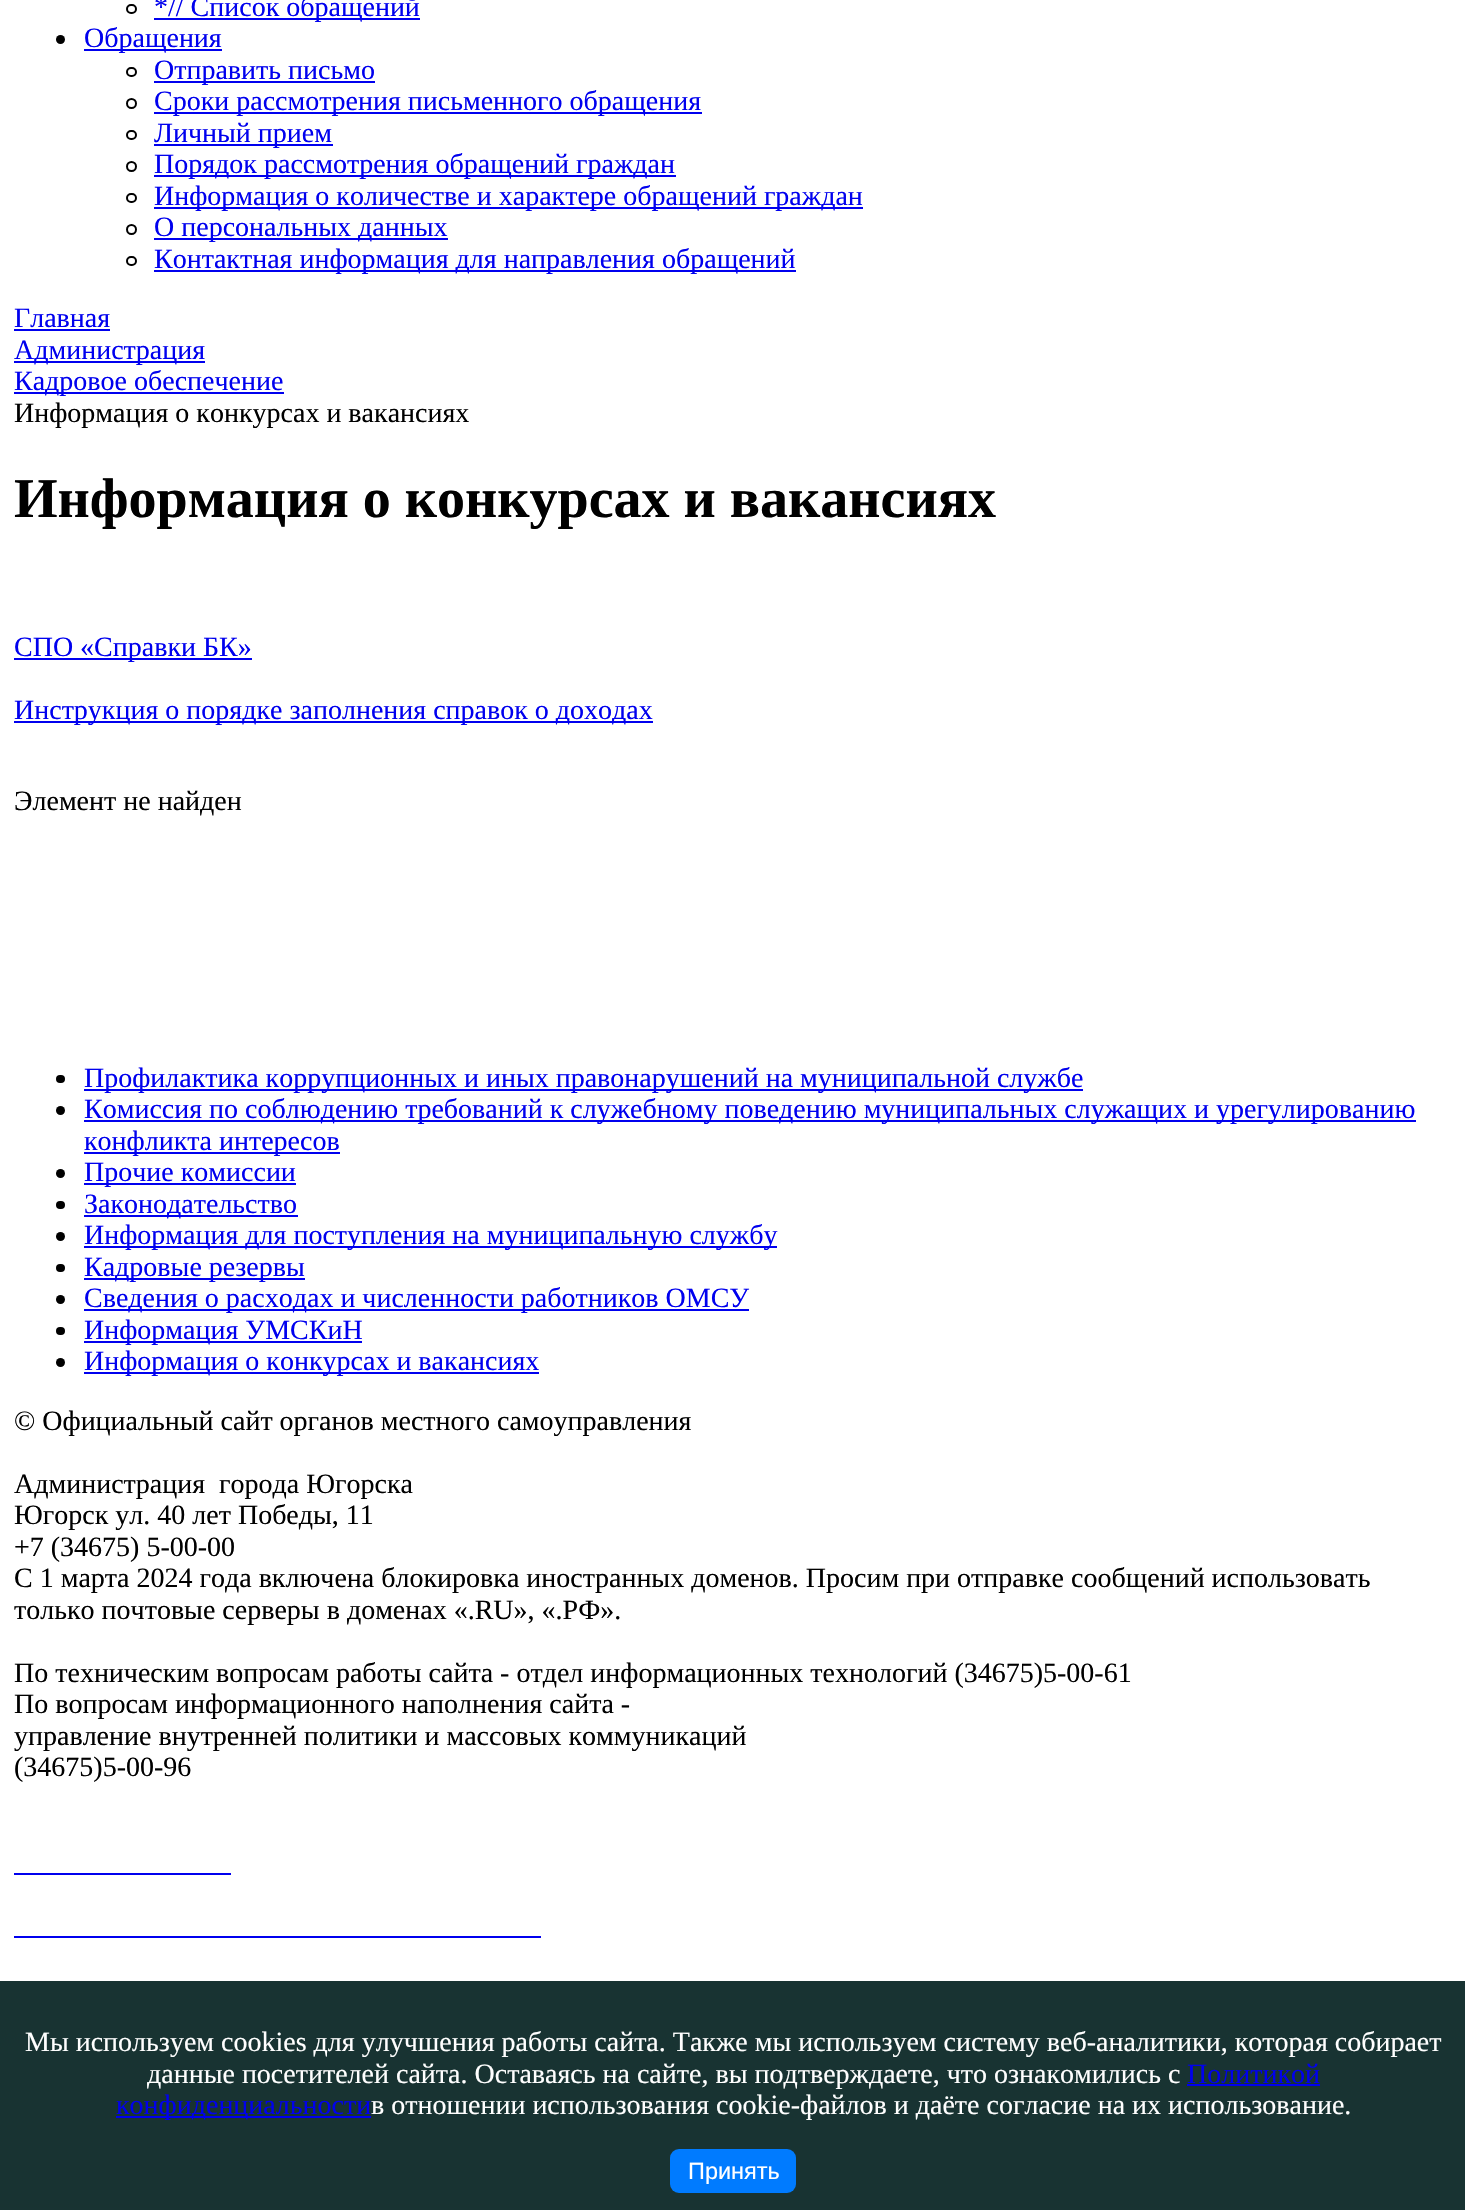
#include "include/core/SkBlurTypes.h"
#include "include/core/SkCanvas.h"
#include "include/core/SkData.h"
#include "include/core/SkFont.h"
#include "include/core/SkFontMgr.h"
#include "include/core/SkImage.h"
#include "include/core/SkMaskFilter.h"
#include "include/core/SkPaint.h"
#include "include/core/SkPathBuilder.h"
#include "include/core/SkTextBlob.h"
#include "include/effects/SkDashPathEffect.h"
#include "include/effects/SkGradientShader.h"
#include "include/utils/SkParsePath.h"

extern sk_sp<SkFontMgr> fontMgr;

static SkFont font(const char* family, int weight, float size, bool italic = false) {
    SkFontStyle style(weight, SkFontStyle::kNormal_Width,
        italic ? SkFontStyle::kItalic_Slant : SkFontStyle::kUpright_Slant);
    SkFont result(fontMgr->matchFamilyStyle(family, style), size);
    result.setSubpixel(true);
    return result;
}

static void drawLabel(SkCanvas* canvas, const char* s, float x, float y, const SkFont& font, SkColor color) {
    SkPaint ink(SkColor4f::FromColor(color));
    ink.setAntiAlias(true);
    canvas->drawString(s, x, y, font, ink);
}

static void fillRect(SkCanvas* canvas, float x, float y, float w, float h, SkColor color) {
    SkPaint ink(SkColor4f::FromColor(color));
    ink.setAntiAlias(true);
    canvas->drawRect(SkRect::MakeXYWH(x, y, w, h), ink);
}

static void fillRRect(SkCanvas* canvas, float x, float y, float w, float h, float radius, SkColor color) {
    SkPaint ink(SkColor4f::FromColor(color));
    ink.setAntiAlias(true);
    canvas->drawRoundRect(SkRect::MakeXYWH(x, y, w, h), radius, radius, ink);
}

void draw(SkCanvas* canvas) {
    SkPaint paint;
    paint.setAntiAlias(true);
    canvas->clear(0xFFFFFFFF);
    paint.setStroke(true);
    paint.setStrokeWidth(2);
    paint.setColor(0xFF000000);
    canvas->drawRoundRect(SkRect::MakeXYWH(127, 5, 9, 8), 4, 4, paint);
    fillRect(canvas, 154, 18, 266, 2, 0xFF0000EE);
    SkFont font1 = font("Liberation Serif", 400, 28);
    drawLabel(canvas, "*// Список обращений", 154, 16, font1, 0xFF0000EE);
    paint.setStroke(false);
    canvas->drawCircle(60.5f, 39.5f, 4.5f, paint);
    fillRect(canvas, 84, 49, 138, 2, 0xFF0000EE);
    drawLabel(canvas, "Обращения", 84, 47, font1, 0xFF0000EE);
    paint.setStroke(true);
    canvas->drawRoundRect(SkRect::MakeXYWH(127, 68, 9, 8), 4, 4, paint);
    fillRect(canvas, 154, 81, 221, 2, 0xFF0000EE);
    drawLabel(canvas, "Отправить письмо", 154, 79, font1, 0xFF0000EE);
    canvas->drawCircle(131.5f, 103.5f, 4.5f, paint);
    fillRect(canvas, 154, 112, 548, 2, 0xFF0000EE);
    drawLabel(canvas, "Сроки рассмотрения письменного обращения", 154, 110, font1, 0xFF0000EE);
    canvas->drawRoundRect(SkRect::MakeXYWH(127, 131, 9, 8), 4, 4, paint);
    fillRect(canvas, 154, 144, 179, 2, 0xFF0000EE);
    drawLabel(canvas, "Личный прием", 154, 142, font1, 0xFF0000EE);
    canvas->drawCircle(131.5f, 166.5f, 4.5f, paint);
    fillRect(canvas, 154, 175, 522, 2, 0xFF0000EE);
    drawLabel(canvas, "Порядок рассмотрения обращений граждан", 154, 173, font1, 0xFF0000EE);
    canvas->drawRoundRect(SkRect::MakeXYWH(127, 194, 9, 8), 4, 4, paint);
    fillRect(canvas, 154, 207, 709, 2, 0xFF0000EE);
    drawLabel(canvas, "Информация о количестве и характере обращений граждан", 154, 205, font1, 0xFF0000EE);
    canvas->drawCircle(131.5f, 229.5f, 4.5f, paint);
    fillRect(canvas, 154, 238, 294, 2, 0xFF0000EE);
    drawLabel(canvas, "О персональных данных", 154, 236, font1, 0xFF0000EE);
    canvas->drawRoundRect(SkRect::MakeXYWH(127, 257, 9, 8), 4, 4, paint);
    fillRect(canvas, 154, 270, 642, 2, 0xFF0000EE);
    drawLabel(canvas, "Контактная информация для направления обращений", 154, 268, font1, 0xFF0000EE);
    drawLabel(canvas, "Главная", 14, 327, font1, 0xFF0000EE);
    fillRect(canvas, 14, 329, 96, 2, 0xFF0000EE);
    fillRect(canvas, 14, 361, 191, 2, 0xFF0000EE);
    drawLabel(canvas, "Администрация", 14, 359, font1, 0xFF0000EE);
    fillRect(canvas, 14, 392, 270, 2, 0xFF0000EE);
    drawLabel(canvas, "Кадровое обеспечение", 14, 390, font1, 0xFF0000EE);
    drawLabel(canvas, "Информация о конкурсах и вакансиях", 14, 422, font1, 0xFF000000);
    SkFont font2 = font("Liberation Serif", 700, 56);
    drawLabel(canvas, "Информация о конкурсах и вакансиях", 14, 517, font2, 0xFF000000);
    fillRect(canvas, 14, 658, 238, 2, 0xFF0000EE);
    drawLabel(canvas, "СПО «Справки БК»", 14, 656, font1, 0xFF0000EE);
    fillRect(canvas, 14, 721, 639, 2, 0xFF0000EE);
    drawLabel(canvas, "Инструкция о порядке заполнения справок о доходах", 14, 719, font1, 0xFF0000EE);
    drawLabel(canvas, "Элемент не найден", 14, 810, font1, 0xFF000000);
    fillRRect(canvas, 56, 1075, 9, 8, 4, 0xFF000000);
    fillRect(canvas, 84, 1089, 999, 2, 0xFF0000EE);
    drawLabel(canvas, "Профилактика коррупционных и иных правонарушений на муниципальной службе", 84, 1087, font1, 0xFF0000EE);
    paint.setStroke(false);
    canvas->drawCircle(60.5f, 1110.5f, 4.5f, paint);
    fillRect(canvas, 84, 1120, 1332, 2, 0xFF0000EE);
    drawLabel(canvas, "Комиссия по соблюдению требований к служебному поведению муниципальных служащих и урегулированию", 84, 1118, font1, 0xFF0000EE);
    fillRect(canvas, 84, 1152, 256, 2, 0xFF0000EE);
    drawLabel(canvas, "конфликта интересов", 84, 1150, font1, 0xFF0000EE);
    canvas->drawCircle(60.5f, 1173.5f, 4.5f, paint);
    fillRect(canvas, 84, 1183, 212, 2, 0xFF0000EE);
    drawLabel(canvas, "Прочие комиссии", 84, 1181, font1, 0xFF0000EE);
    fillRRect(canvas, 56, 1201, 9, 8, 4, 0xFF000000);
    fillRect(canvas, 84, 1215, 214, 2, 0xFF0000EE);
    drawLabel(canvas, "Законодательство", 84, 1213, font1, 0xFF0000EE);
    canvas->drawCircle(60.5f, 1236.5f, 4.5f, paint);
    fillRect(canvas, 84, 1246, 693, 2, 0xFF0000EE);
    drawLabel(canvas, "Информация для поступления на муниципальную службу", 84, 1244, font1, 0xFF0000EE);
    fillRRect(canvas, 56, 1264, 9, 8, 4, 0xFF000000);
    fillRect(canvas, 84, 1278, 221, 2, 0xFF0000EE);
    drawLabel(canvas, "Кадровые резервы", 84, 1276, font1, 0xFF0000EE);
    canvas->drawCircle(60.5f, 1299.5f, 4.5f, paint);
    fillRect(canvas, 84, 1309, 665, 2, 0xFF0000EE);
    drawLabel(canvas, "Сведения о расходах и численности работников ОМСУ", 84, 1307, font1, 0xFF0000EE);
    fillRRect(canvas, 56, 1327, 9, 8, 4, 0xFF000000);
    fillRect(canvas, 84, 1341, 278, 2, 0xFF0000EE);
    drawLabel(canvas, "Информация УМСКиН", 84, 1339, font1, 0xFF0000EE);
    canvas->drawCircle(60.5f, 1362.5f, 4.5f, paint);
    fillRect(canvas, 84, 1372, 455, 2, 0xFF0000EE);
    drawLabel(canvas, "Информация о конкурсах и вакансиях", 84, 1370, font1, 0xFF0000EE);
    drawLabel(canvas, "© Официальный сайт органов местного самоуправления", 14, 1430, font1, 0xFF000000);
    drawLabel(canvas, "Администрация  города Югорска", 14, 1493, font1, 0xFF000000);
    drawLabel(canvas, "Югорск ул. 40 лет Победы, 11", 14, 1524, font1, 0xFF000000);
    drawLabel(canvas, "+7 (34675) 5-00-00", 14, 1556, font1, 0xFF000000);
    drawLabel(canvas, "С 1 марта 2024 года включена блокировка иностранных доменов. Просим при отправке сообщений использовать", 14, 1587, font1, 0xFF000000);
    drawLabel(canvas, "только почтовые серверы в доменах «.RU», «.РФ».", 14, 1619, font1, 0xFF000000);
    drawLabel(canvas, "По техническим вопросам работы сайта - отдел информационных технологий (34675)5-00-61", 14, 1682, font1, 0xFF000000);
    drawLabel(canvas, "По вопросам информационного наполнения сайта -", 14, 1713, font1, 0xFF000000);
    drawLabel(canvas, "управление внутренней политики и массовых коммуникаций", 14, 1745, font1, 0xFF000000);
    drawLabel(canvas, "(34675)5-00-96", 14, 1776, font1, 0xFF000000);
    fillRect(canvas, 14, 1873, 217, 2, 0xFF0000EE);
    fillRect(canvas, 14, 1936, 527, 2, 0xFF0000EE);
    fillRect(canvas, 0, 1981, 1465, 229, 0xFF183332);
    drawLabel(canvas, "Мы используем cookies для улучшения работы сайта. Также мы используем систему веб-аналитики, которая собирает", 25, 2051, font1, 0xFFFFFFFF);
    drawLabel(canvas, "данные посетителей сайта. Оставаясь на сайте, вы подтверждаете, что ознакомились с", 147, 2083, font1, 0xFFFFFFFF);
    drawLabel(canvas, "Политикой", 1187, 2083, font1, 0xFF0000EE);
    fillRect(canvas, 1187, 2084, 133, 2, 0xFF0000EE);
    fillRect(canvas, 116, 2116, 255, 2, 0xFF0000EE);
    drawLabel(canvas, "конфиденциальности", 116, 2114, font1, 0xFF0000EE);
    drawLabel(canvas, "в отношении использования cookie-файлов и даёте согласие на их использование.", 371, 2114, font1, 0xFFFFFFFF);
    fillRRect(canvas, 670, 2149, 126, 44, 9, 0xFF007BFF);
    SkFont font3 = font("Liberation Sans", 400, 23.5f);
    drawLabel(canvas, "Принять", 688, 2179, font3, 0xFFFFFFFF);
}
